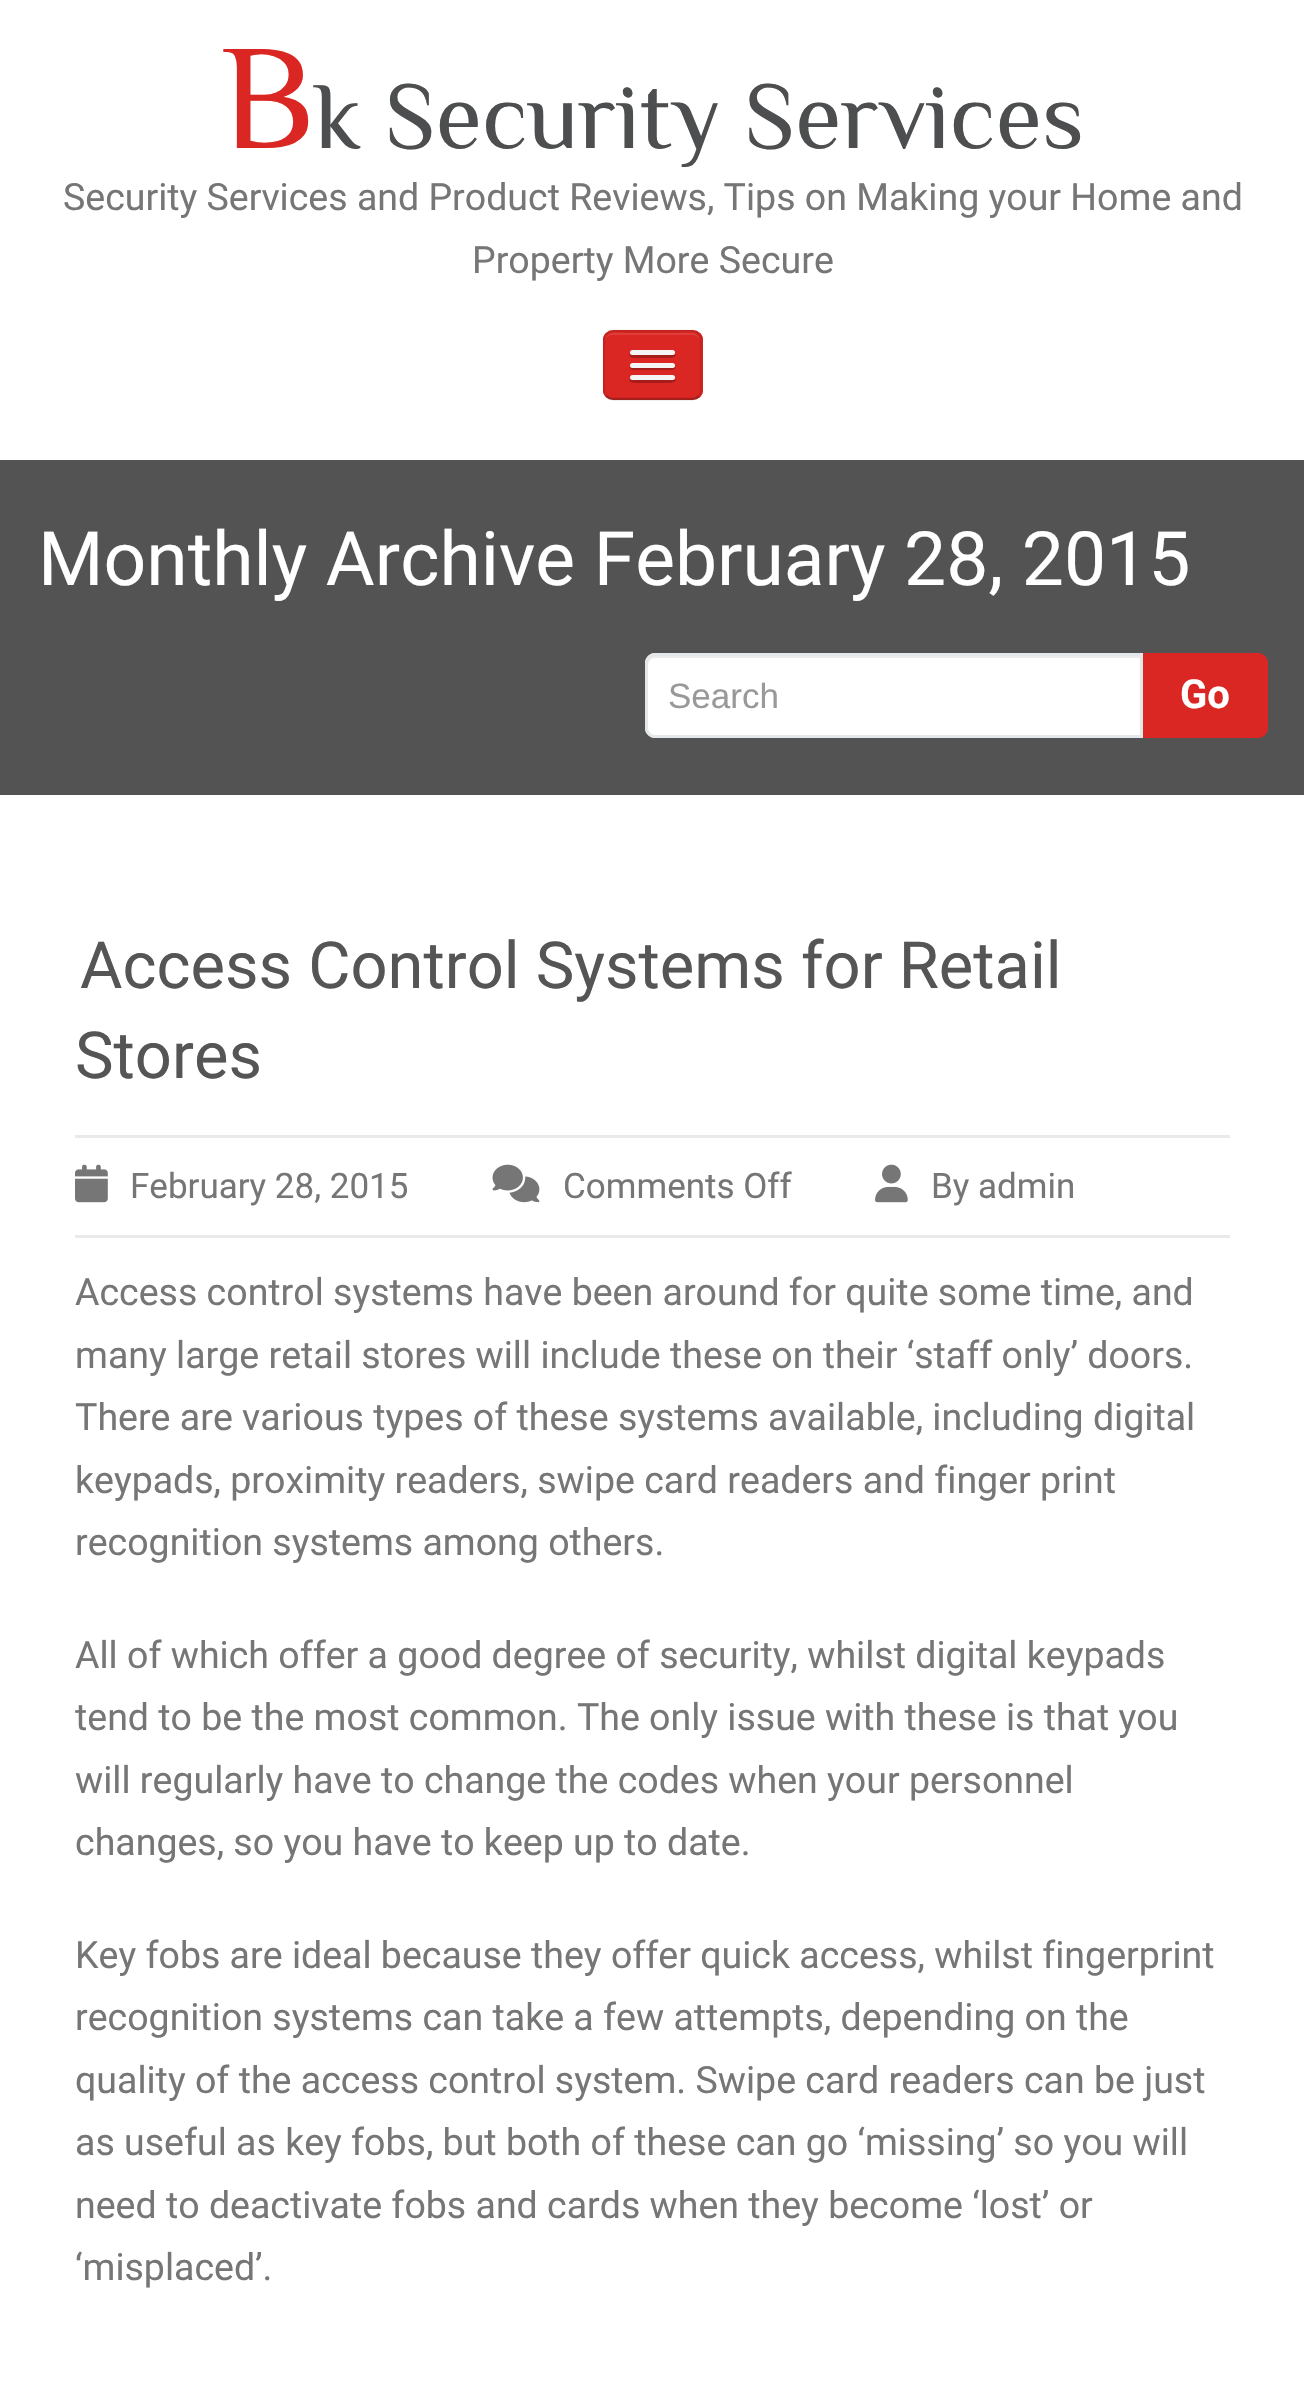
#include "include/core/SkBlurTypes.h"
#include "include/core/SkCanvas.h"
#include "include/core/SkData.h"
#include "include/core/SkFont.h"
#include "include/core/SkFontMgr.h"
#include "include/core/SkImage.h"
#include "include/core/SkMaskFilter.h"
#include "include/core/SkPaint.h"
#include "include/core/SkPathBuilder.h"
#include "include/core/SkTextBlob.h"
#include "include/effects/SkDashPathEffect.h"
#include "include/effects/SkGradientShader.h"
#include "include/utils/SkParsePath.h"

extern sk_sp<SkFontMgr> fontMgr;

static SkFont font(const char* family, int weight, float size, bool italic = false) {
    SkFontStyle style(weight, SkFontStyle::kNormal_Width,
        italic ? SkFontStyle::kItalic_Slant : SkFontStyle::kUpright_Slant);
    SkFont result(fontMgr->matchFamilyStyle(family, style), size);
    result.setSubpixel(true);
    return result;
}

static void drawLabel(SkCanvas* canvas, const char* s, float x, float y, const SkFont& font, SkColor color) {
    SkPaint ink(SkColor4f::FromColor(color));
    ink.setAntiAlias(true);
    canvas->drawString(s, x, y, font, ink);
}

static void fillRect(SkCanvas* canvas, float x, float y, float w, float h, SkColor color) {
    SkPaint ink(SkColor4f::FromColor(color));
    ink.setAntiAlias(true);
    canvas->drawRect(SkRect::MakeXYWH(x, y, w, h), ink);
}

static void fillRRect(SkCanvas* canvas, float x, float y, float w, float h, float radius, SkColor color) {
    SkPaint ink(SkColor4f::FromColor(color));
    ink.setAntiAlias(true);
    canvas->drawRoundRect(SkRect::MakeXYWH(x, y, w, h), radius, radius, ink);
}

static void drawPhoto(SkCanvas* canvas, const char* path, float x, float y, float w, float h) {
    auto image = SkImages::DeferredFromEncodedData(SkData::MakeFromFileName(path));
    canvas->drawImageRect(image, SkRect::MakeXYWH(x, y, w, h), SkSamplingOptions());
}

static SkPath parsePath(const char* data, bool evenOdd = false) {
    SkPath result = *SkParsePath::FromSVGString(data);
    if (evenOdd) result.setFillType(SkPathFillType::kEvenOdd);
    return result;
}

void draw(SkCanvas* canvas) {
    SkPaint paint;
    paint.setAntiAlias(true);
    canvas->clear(0xFFFFFFFF);
    SkFont font1 = font("Philosopher", 400, 150);
    drawLabel(canvas, "B", 221, 148, font1, 0xFFDB2723);
    SkFont font2 = font("Philosopher", 400, 95);
    drawLabel(canvas, "k Security Services", 315, 148, font2, 0xFF4D4E4F);
    SkFont font3 = font("Roboto", 400, 37.5f);
    drawLabel(canvas, "Security Services and Product Reviews, Tips on Making your Home and", 63, 210, font3, 0xFF767676);
    drawLabel(canvas, "Property More Secure", 472, 273, font3, 0xFF767676);
    fillRRect(canvas, 603, 330, 100, 70, 10, 0xFFDB2723);
    canvas->save();
    canvas->clipPath(parsePath("M613 330H693C698.5 330 703 334.5 703 340V390C703 395.5 698.5 400 693 400H613C607.5 400 603 395.5 603 390V340C603 334.5 607.5 330 613 330Z"), true);
    fillRect(canvas, 603, 333, 100, 65, 0xFFDB2723);
    canvas->restore();
    paint.setColor(0xFFDF3D39);
    canvas->drawPath(parsePath("M612 335H692C697 335 700 338 700 342C700 330 687 333 679 333H626C618 333 605 330 605 342C605 338 608 335 612 335Z"), paint);
    paint.setStroke(true);
    paint.setStrokeWidth(2.5f);
    paint.setColor(0x40000000);
    canvas->drawPath(parsePath("M698.5 396C697 398 695 399 692.5 399H612.5C610 399 608 398 606.5 396"), paint);
    paint.setColor(0x1A000000);
    canvas->drawPath(parsePath("M606.5 396C604.5 394.5 604 392.5 604 390V340C604 337.5 604.5 335.5 606.5 334C608 332 610 331 612.5 331H692.5C695 331 697 332 698.5 334C700.5 335.5 701 337.5 701 340V390C701 392.5 700.5 394.5 698.5 396"), paint);
    paint.setStroke(false);
    paint.setColor(0xFFA41D1A);
    canvas->drawPath(parsePath("M630 354C627 358 635 358 639 358H666C670 358 678 358 675 354L673 355H632Z"), paint);
    fillRRect(canvas, 630, 350, 45, 5, 2.5f, 0xFFF5F5F5);
    canvas->drawPath(parsePath("M630 366C627 371 639 370 639 370H666C666 370 678 371 675 366C674 367 673 368 672 368H632C632 368 631 367 630 366Z"), paint);
    fillRRect(canvas, 630, 363, 45, 5, 2.5f, 0xFFF5F5F5);
    canvas->drawPath(parsePath("M630 379C627 383 635 383 639 383H666C670 383 678 383 675 379L673 380H632Z"), paint);
    fillRRect(canvas, 630, 375, 45, 5, 2.5f, 0xFFF5F5F5);
    fillRect(canvas, 0, 460, 1304, 335, 0xFF535354);
    SkFont font4 = font("Roboto", 400, 75);
    drawLabel(canvas, "Monthly Archive February 28, 2015", 38, 585, font4, 0xFFFFFFFF);
    paint.setColor(0xFFFFFFFF);
    canvas->drawPath(parsePath("M655 653H1143V738H655C649.5 738 645 733.5 645 728V663C645 657.5 649.5 653 655 653Z"), paint);
    paint.setColor(0xFFECECEC);
    canvas->drawPath(parsePath("M655 658H1140V655H656C652 655 648 659 648 663V665C648 661 651 658 655 658Z"), paint);
    paint.setStroke(true);
    paint.setStrokeWidth(3);
    paint.setColor(0xFFE4E8EA);
    canvas->drawPath(parsePath("M655 654.5H1141.5V736.5H655C650.5 736.5 646.5 732.5 646.5 728V663C646.5 658.5 650.5 654.5 655 654.5Z"), paint);
    SkFont font5 = font("Liberation Sans", 400, 35);
    drawLabel(canvas, "Search", 668, 708, font5, 0xFF999999);
    paint.setStroke(false);
    paint.setColor(0xFFDB2723);
    canvas->drawPath(parsePath("M1143 653H1258C1263.5 653 1268 657.5 1268 663V728C1268 733.5 1263.5 738 1258 738H1143Z"), paint);
    SkFont font6 = font("Roboto", 700, 40);
    drawLabel(canvas, "Go", 1180, 708, font6, 0xFFFFFFFF);
    SkFont font7 = font("Roboto", 400, 65);
    drawLabel(canvas, "Access Control Systems for Retail", 80, 988, font7, 0xFF555555);
    drawLabel(canvas, "Stores", 75, 1078, font7, 0xFF555555);
    fillRect(canvas, 75, 1135, 1155, 3, 0xFFEBEAEA);
    fillRect(canvas, 75, 1235, 1155, 3, 0xFFEBEAEA);
    drawPhoto(canvas, "assets/img1.png", 75, 1164, 33, 39);
    SkFont font8 = font("Roboto", 400, 35);
    drawLabel(canvas, "February 28, 2015", 130, 1198, font8, 0xFF767676);
    drawPhoto(canvas, "assets/img2.png", 492, 1164, 48, 39);
    drawLabel(canvas, "Comments Off", 563, 1198, font8, 0xFF767676);
    drawPhoto(canvas, "assets/img3.png", 875, 1164, 33, 39);
    drawLabel(canvas, "By admin", 931, 1198, font8, 0xFF767676);
    drawLabel(canvas, "Access control systems have been around for quite some time, and", 75, 1305, font3, 0xFF767676);
    drawLabel(canvas, "many large retail stores will include these on their ‘staff only’ doors.", 75, 1368, font3, 0xFF767676);
    drawLabel(canvas, "There are various types of these systems available, including digital", 75, 1430, font3, 0xFF767676);
    drawLabel(canvas, "keypads, proximity readers, swipe card readers and finger print", 75, 1493, font3, 0xFF767676);
    drawLabel(canvas, "recognition systems among others.", 75, 1555, font3, 0xFF767676);
    drawLabel(canvas, "All of which offer a good degree of security, whilst digital keypads", 75, 1668, font3, 0xFF767676);
    drawLabel(canvas, "tend to be the most common. The only issue with these is that you", 75, 1730, font3, 0xFF767676);
    drawLabel(canvas, "will regularly have to change the codes when your personnel", 75, 1793, font3, 0xFF767676);
    drawLabel(canvas, "changes, so you have to keep up to date.", 75, 1855, font3, 0xFF767676);
    drawLabel(canvas, "Key fobs are ideal because they offer quick access, whilst fingerprint", 75, 1968, font3, 0xFF767676);
    drawLabel(canvas, "recognition systems can take a few attempts, depending on the", 75, 2030, font3, 0xFF767676);
    drawLabel(canvas, "quality of the access control system. Swipe card readers can be just", 75, 2093, font3, 0xFF767676);
    drawLabel(canvas, "as useful as key fobs, but both of these can go ‘missing’ so you will", 75, 2155, font3, 0xFF767676);
    drawLabel(canvas, "need to deactivate fobs and cards when they become ‘lost’ or", 75, 2218, font3, 0xFF767676);
    drawLabel(canvas, "‘misplaced’.", 75, 2280, font3, 0xFF767676);
}
